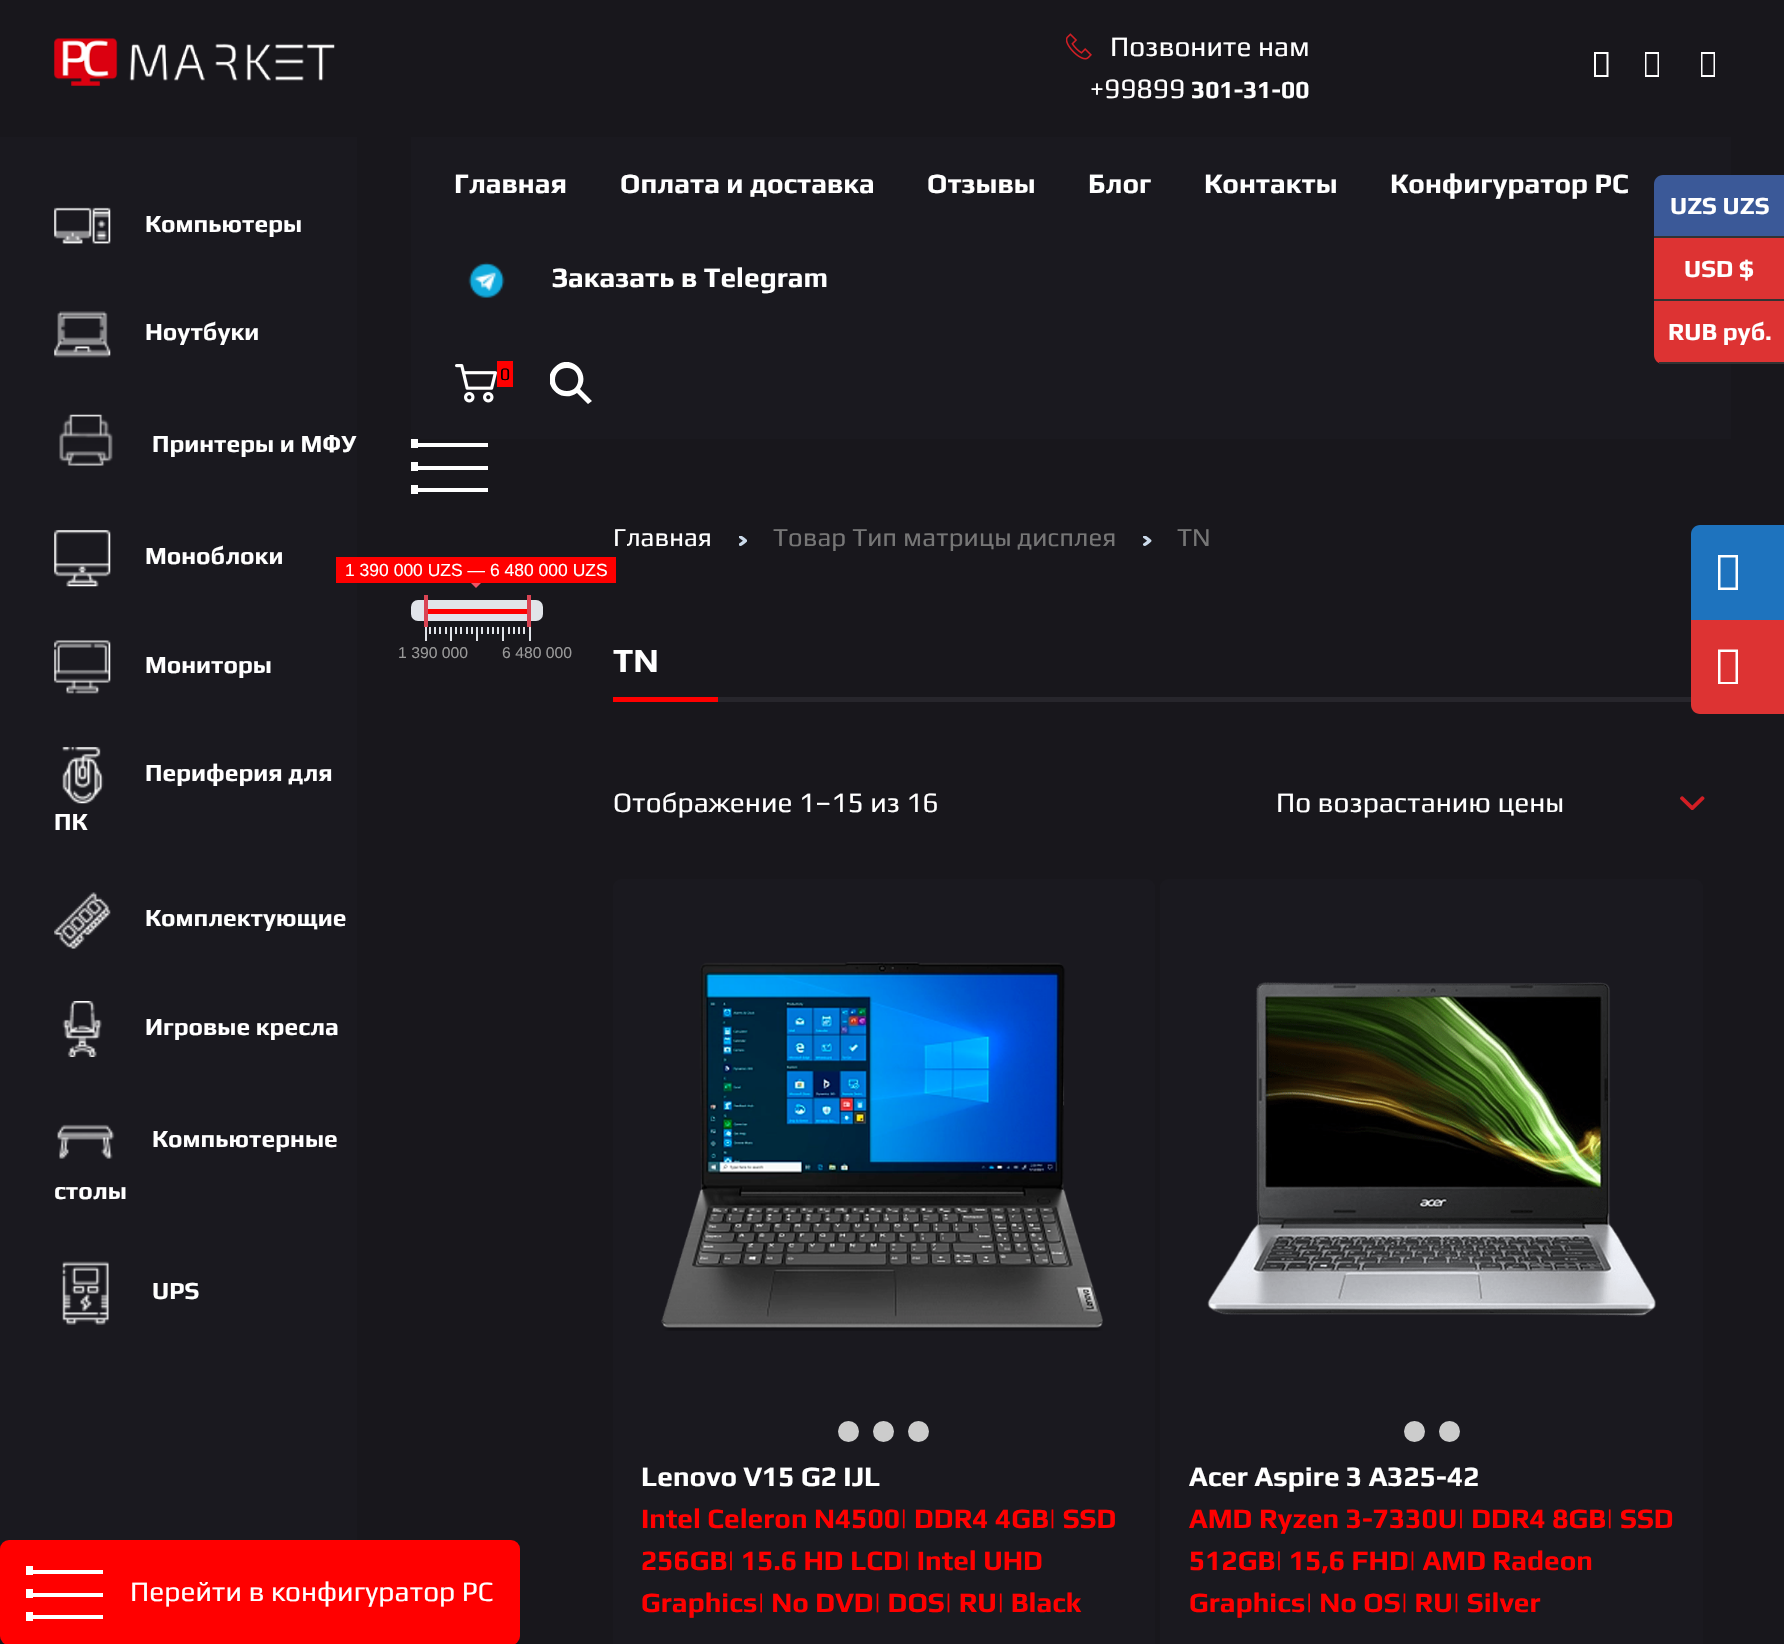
#include "include/core/SkBlurTypes.h"
#include "include/core/SkCanvas.h"
#include "include/core/SkData.h"
#include "include/core/SkFont.h"
#include "include/core/SkFontMgr.h"
#include "include/core/SkImage.h"
#include "include/core/SkMaskFilter.h"
#include "include/core/SkPaint.h"
#include "include/core/SkPathBuilder.h"
#include "include/core/SkTextBlob.h"
#include "include/effects/SkDashPathEffect.h"
#include "include/effects/SkGradientShader.h"
#include "include/utils/SkParsePath.h"

extern sk_sp<SkFontMgr> fontMgr;

static SkFont font(const char* family, int weight, float size, bool italic = false) {
    SkFontStyle style(weight, SkFontStyle::kNormal_Width,
        italic ? SkFontStyle::kItalic_Slant : SkFontStyle::kUpright_Slant);
    SkFont result(fontMgr->matchFamilyStyle(family, style), size);
    result.setSubpixel(true);
    return result;
}

static void drawLabel(SkCanvas* canvas, const char* s, float x, float y, const SkFont& font, SkColor color) {
    SkPaint ink(SkColor4f::FromColor(color));
    ink.setAntiAlias(true);
    canvas->drawString(s, x, y, font, ink);
}

static void fillRect(SkCanvas* canvas, float x, float y, float w, float h, SkColor color) {
    SkPaint ink(SkColor4f::FromColor(color));
    ink.setAntiAlias(true);
    canvas->drawRect(SkRect::MakeXYWH(x, y, w, h), ink);
}

static void fillRRect(SkCanvas* canvas, float x, float y, float w, float h, float radius, SkColor color) {
    SkPaint ink(SkColor4f::FromColor(color));
    ink.setAntiAlias(true);
    canvas->drawRoundRect(SkRect::MakeXYWH(x, y, w, h), radius, radius, ink);
}

static void drawPhoto(SkCanvas* canvas, const char* path, float x, float y, float w, float h) {
    auto image = SkImages::DeferredFromEncodedData(SkData::MakeFromFileName(path));
    canvas->drawImageRect(image, SkRect::MakeXYWH(x, y, w, h), SkSamplingOptions());
}

static SkPath parsePath(const char* data, bool evenOdd = false) {
    SkPath result = *SkParsePath::FromSVGString(data);
    if (evenOdd) result.setFillType(SkPathFillType::kEvenOdd);
    return result;
}

void draw(SkCanvas* canvas) {
    SkPaint paint;
    paint.setAntiAlias(true);
    canvas->clear(0xFF18171C);
    drawPhoto(canvas, "assets/img1.png", 54, 38, 281, 48);
    drawPhoto(canvas, "assets/img2.png", 1066, 33, 26, 27);
    SkFont font1 = font("Play", 400, 28);
    drawLabel(canvas, "Позвоните нам", 1110, 56, font1, 0xFFFFFFFF);
    drawLabel(canvas, "+99899", 1090, 98, font1, 0xFFFFFFFF);
    SkFont font2 = font("Play", 700, 24.5f);
    drawLabel(canvas, "301-31-00", 1191, 98, font2, 0xFFFFFFFF);
    paint.setColor(0xFFFFFFFF);
    canvas->drawPath(parsePath("M1594 77V52H1608.5V77ZM1596 75H1606.5V54H1596Z"), paint);
    canvas->drawPath(parsePath("M1645 77V52H1659V77ZM1646.5 75H1657.5V54H1646.5Z"), paint);
    canvas->drawPath(parsePath("M1701 77V52H1715V77ZM1702.5 75H1713.5V54H1702.5Z"), paint);
    fillRect(canvas, 0, 137, 357, 1507, 0xFF1A191F);
    drawPhoto(canvas, "assets/img3.png", 54, 207, 57, 37);
    drawLabel(canvas, "Компьютеры", 145, 232, font2, 0xFFFFFFFF);
    drawPhoto(canvas, "assets/img4.png", 54, 311, 57, 47);
    drawLabel(canvas, "Ноутбуки", 145, 340, font2, 0xFFFFFFFF);
    drawPhoto(canvas, "assets/img5.png", 59, 414, 54, 52);
    drawLabel(canvas, "Принтеры и МФУ", 152, 452, font2, 0xFFFFFFFF);
    drawPhoto(canvas, "assets/img6.png", 54, 530, 57, 57);
    drawLabel(canvas, "Моноблоки", 145, 564, font2, 0xFFFFFFFF);
    drawPhoto(canvas, "assets/img7.png", 54, 640, 57, 54);
    drawLabel(canvas, "Мониторы", 145, 673, font2, 0xFFFFFFFF);
    drawPhoto(canvas, "assets/img8.png", 62, 747, 42, 57);
    drawLabel(canvas, "Периферия для", 145, 781, font2, 0xFFFFFFFF);
    drawLabel(canvas, "ПК", 54, 830, font2, 0xFFFFFFFF);
    drawPhoto(canvas, "assets/img9.png", 54, 892, 57, 57);
    drawLabel(canvas, "Комплектующие", 145, 926, font2, 0xFFFFFFFF);
    drawPhoto(canvas, "assets/img10.png", 62, 1001, 40, 56);
    drawLabel(canvas, "Игровые кресла", 145, 1035, font2, 0xFFFFFFFF);
    drawPhoto(canvas, "assets/img11.png", 57, 1124, 58, 35);
    drawLabel(canvas, "Компьютерные", 152, 1147, font2, 0xFFFFFFFF);
    drawLabel(canvas, "столы", 54, 1199, font2, 0xFFFFFFFF);
    drawPhoto(canvas, "assets/img12.png", 62, 1261, 47, 64);
    drawLabel(canvas, "UPS", 152, 1299, font2, 0xFFFFFFFF);
    fillRect(canvas, 411, 137, 1320, 302, 0xFF1A191F);
    SkFont font3 = font("Play", 700, 28);
    drawLabel(canvas, "Главная", 454, 193, font3, 0xFFFFFFFF);
    drawLabel(canvas, "Оплата и доставка", 620, 193, font3, 0xFFFFFFFF);
    drawLabel(canvas, "Отзывы", 927, 193, font3, 0xFFFFFFFF);
    drawLabel(canvas, "Блог", 1088, 193, font3, 0xFFFFFFFF);
    drawLabel(canvas, "Контакты", 1204, 193, font3, 0xFFFFFFFF);
    drawLabel(canvas, "Конфигуратор PC", 1390, 193, font3, 0xFFFFFFFF);
    drawPhoto(canvas, "assets/img13.png", 468, 262, 37, 36);
    drawLabel(canvas, "Заказать в Telegram", 552, 287, font3, 0xFFFFFFFF);
    drawPhoto(canvas, "assets/img14.png", 455, 364, 42, 39);
    fillRect(canvas, 497, 361, 16, 26, 0xFFFF0000);
    SkFont font4 = font("Play", 400, 17.5f);
    drawLabel(canvas, "0", 500, 380, font4, 0xFF000000);
    canvas->save();
    canvas->clipRect(SkRect::MakeXYWH(550, 362, 42, 42));
    canvas->drawPath(parsePath("M580 389C592 373 570 352 555 367C539 382 560 405 577 393L588 404L592 401ZM567 391C551 391 551 368 567 368C582 368 582 391 567 391Z"), paint);
    canvas->restore();
    fillRect(canvas, 411, 439, 7, 9, 0xFFFFFFFF);
    fillRect(canvas, 411, 443, 77, 4, 0xFFFFFFFF);
    fillRect(canvas, 411, 462, 7, 9, 0xFFFFFFFF);
    fillRect(canvas, 411, 466, 77, 4, 0xFFFFFFFF);
    fillRect(canvas, 411, 485, 7, 9, 0xFFFFFFFF);
    fillRect(canvas, 411, 488, 77, 4, 0xFFFFFFFF);
    fillRect(canvas, 336, 557, 280, 26, 0xFFFF0000);
    SkFont font5 = font("Liberation Sans", 400, 17.5f);
    drawLabel(canvas, "1 390 000 UZS — 6 480 000 UZS", 345, 576, font5, 0xFFFFFFFF);
    paint.setColor(0xFFED5565);
    canvas->drawPath(parsePath("M471 583H481L476 588Z"), paint);
    fillRRect(canvas, 411, 600, 132, 21, 7, 0xFFE1E4E9);
    fillRect(canvas, 425, 609, 104, 5, 0xFFFF0000);
    fillRect(canvas, 424, 595, 4, 32, 0xFFDA4453);
    fillRect(canvas, 527, 595, 4, 32, 0xFFDA4453);
    fillRect(canvas, 425, 627, 2, 14, 0xFFE1E4E9);
    fillRect(canvas, 429, 627, 2, 7, 0xFFE1E4E9);
    fillRect(canvas, 434, 627, 2, 7, 0xFFE1E4E9);
    fillRect(canvas, 439, 627, 2, 7, 0xFFE1E4E9);
    fillRect(canvas, 445, 627, 2, 7, 0xFFE1E4E9);
    fillRect(canvas, 450, 627, 2, 14, 0xFFE1E4E9);
    fillRect(canvas, 455, 627, 2, 7, 0xFFE1E4E9);
    fillRect(canvas, 460, 627, 2, 7, 0xFFE1E4E9);
    fillRect(canvas, 466, 627, 2, 7, 0xFFE1E4E9);
    fillRect(canvas, 471, 627, 2, 7, 0xFFE1E4E9);
    fillRect(canvas, 476, 627, 2, 14, 0xFFE1E4E9);
    fillRect(canvas, 481, 627, 2, 7, 0xFFE1E4E9);
    fillRect(canvas, 487, 627, 2, 7, 0xFFE1E4E9);
    fillRect(canvas, 492, 627, 2, 7, 0xFFE1E4E9);
    fillRect(canvas, 497, 627, 2, 7, 0xFFE1E4E9);
    fillRect(canvas, 502, 627, 2, 14, 0xFFE1E4E9);
    fillRect(canvas, 508, 627, 2, 7, 0xFFE1E4E9);
    fillRect(canvas, 513, 627, 2, 7, 0xFFE1E4E9);
    fillRect(canvas, 518, 627, 2, 7, 0xFFE1E4E9);
    fillRect(canvas, 523, 627, 2, 7, 0xFFE1E4E9);
    fillRect(canvas, 529, 627, 2, 14, 0xFFE1E4E9);
    SkFont font6 = font("Liberation Sans", 400, 15.75f);
    drawLabel(canvas, "1 390 000", 398, 658, font6, 0xFF999999);
    drawLabel(canvas, "6 480 000", 502, 658, font6, 0xFF999999);
    SkFont font7 = font("Play", 400, 25.75f);
    drawLabel(canvas, "Главная", 613, 546, font7, 0xFFFFFFFF);
    drawPhoto(canvas, "assets/img15.png", 739, 536, 8, 10);
    drawLabel(canvas, "Товар Тип матрицы дисплея", 773, 546, font7, 0xFF767676);
    drawPhoto(canvas, "assets/img16.png", 1143, 536, 9, 10);
    drawLabel(canvas, "TN", 1177, 546, font7, 0xFF767676);
    SkFont font8 = font("Play", 700, 34);
    drawLabel(canvas, "TN", 613, 672, font8, 0xFFFFFFFF);
    fillRect(canvas, 613, 697, 105, 5, 0xFFFF0000);
    fillRect(canvas, 718, 697, 973, 5, 0xFF27262C);
    drawLabel(canvas, "Отображение 1–15 из 16", 613, 812, font1, 0xFFFFFFFF);
    drawLabel(canvas, "По возрастанию цены", 1276, 812, font1, 0xFFFFFFFF);
    drawPhoto(canvas, "assets/img17.png", 1680, 796, 25, 14);
    fillRRect(canvas, 613, 879, 542, 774, 9, 0xFF1A191F);
    drawPhoto(canvas, "assets/img18.png", 661, 962, 442, 369);
    paint.setColor(0xFFCCCCCC);
    canvas->drawCircle(848.5f, 1431.5f, 10.5f, paint);
    canvas->drawCircle(883.5f, 1431.5f, 10.5f, paint);
    canvas->drawCircle(918.5f, 1431.5f, 10.5f, paint);
    drawLabel(canvas, "Lenovo V15 G2 IJL", 641, 1486, font3, 0xFFFFFFFF);
    drawLabel(canvas, "Intel Celeron N4500| DDR4 4GB| SSD", 641, 1528, font3, 0xFFFF0000);
    drawLabel(canvas, "256GB| 15.6 HD LCD| Intel UHD", 641, 1570, font3, 0xFFFF0000);
    drawLabel(canvas, "Graphics| No DVD| DOS| RU| Black", 641, 1612, font3, 0xFFFF0000);
    fillRRect(canvas, 1160, 879, 543, 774, 9, 0xFF1A191F);
    drawPhoto(canvas, "assets/img19.png", 1207, 982, 449, 335);
    canvas->drawCircle(1414.5f, 1431.5f, 10.5f, paint);
    canvas->drawCircle(1449.5f, 1431.5f, 10.5f, paint);
    drawLabel(canvas, "Acer Aspire 3 A325-42", 1189, 1486, font3, 0xFFFFFFFF);
    drawLabel(canvas, "AMD Ryzen 3-7330U| DDR4 8GB| SSD", 1189, 1528, font3, 0xFFFF0000);
    drawLabel(canvas, "512GB| 15,6 FHD| AMD Radeon", 1189, 1570, font3, 0xFFFF0000);
    drawLabel(canvas, "Graphics| No OS| RU| Silver", 1189, 1612, font3, 0xFFFF0000);
    paint.setColor(0xFF3B5998);
    canvas->drawPath(parsePath("M1663 175H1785V238H1654V184C1654 179 1658 175 1663 175Z"), paint);
    fillRect(canvas, 1654, 236, 130, 2, 0xFF333333);
    drawLabel(canvas, "UZS UZS", 1670, 214, font2, 0xFFFFFFFF);
    fillRect(canvas, 1654, 238, 130, 61, 0xFFDD3333);
    fillRect(canvas, 1654, 299, 130, 2, 0xFF333333);
    drawLabel(canvas, "USD $", 1684, 277, font2, 0xFFFFFFFF);
    paint.setColor(0xFFDD3333);
    canvas->drawPath(parsePath("M1654 301H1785V364H1663C1658 364 1654 360 1654 355Z"), paint);
    fillRect(canvas, 1659, 362, 125, 2, 0xFF333333);
    drawLabel(canvas, "RUB руб.", 1668, 340, font2, 0xFFFFFFFF);
    paint.setColor(0xFF1E73BE);
    canvas->drawPath(parsePath("M1700 525H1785V620H1691V534C1691 529 1695 525 1700 525Z"), paint);
    paint.setColor(0xFFFFFFFF);
    canvas->drawPath(parsePath("M1718 590V555H1738V590ZM1720.5 587.5H1735.5V557.5H1720.5Z"), paint);
    paint.setColor(0xFFDD3333);
    canvas->drawPath(parsePath("M1691 620H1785V714H1700C1695 714 1691 710 1691 705Z"), paint);
    paint.setColor(0xFFFFFFFF);
    canvas->drawPath(parsePath("M1718 684V649.5H1738V684ZM1720.5 682H1735.5V652H1720.5Z"), paint);
    fillRRect(canvas, 0, 1540, 520, 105, 9, 0xFFFF0000);
    fillRect(canvas, 26, 1566, 7, 9, 0xFFFFFFFF);
    fillRect(canvas, 26, 1570, 77, 4, 0xFFFFFFFF);
    fillRect(canvas, 26, 1589, 7, 9, 0xFFFFFFFF);
    fillRect(canvas, 26, 1593, 77, 4, 0xFFFFFFFF);
    fillRect(canvas, 26, 1612, 7, 9, 0xFFFFFFFF);
    fillRect(canvas, 26, 1615, 77, 4, 0xFFFFFFFF);
    drawLabel(canvas, "Перейти в конфигуратор PC", 130, 1601, font1, 0xFFFFFFFF);
}
